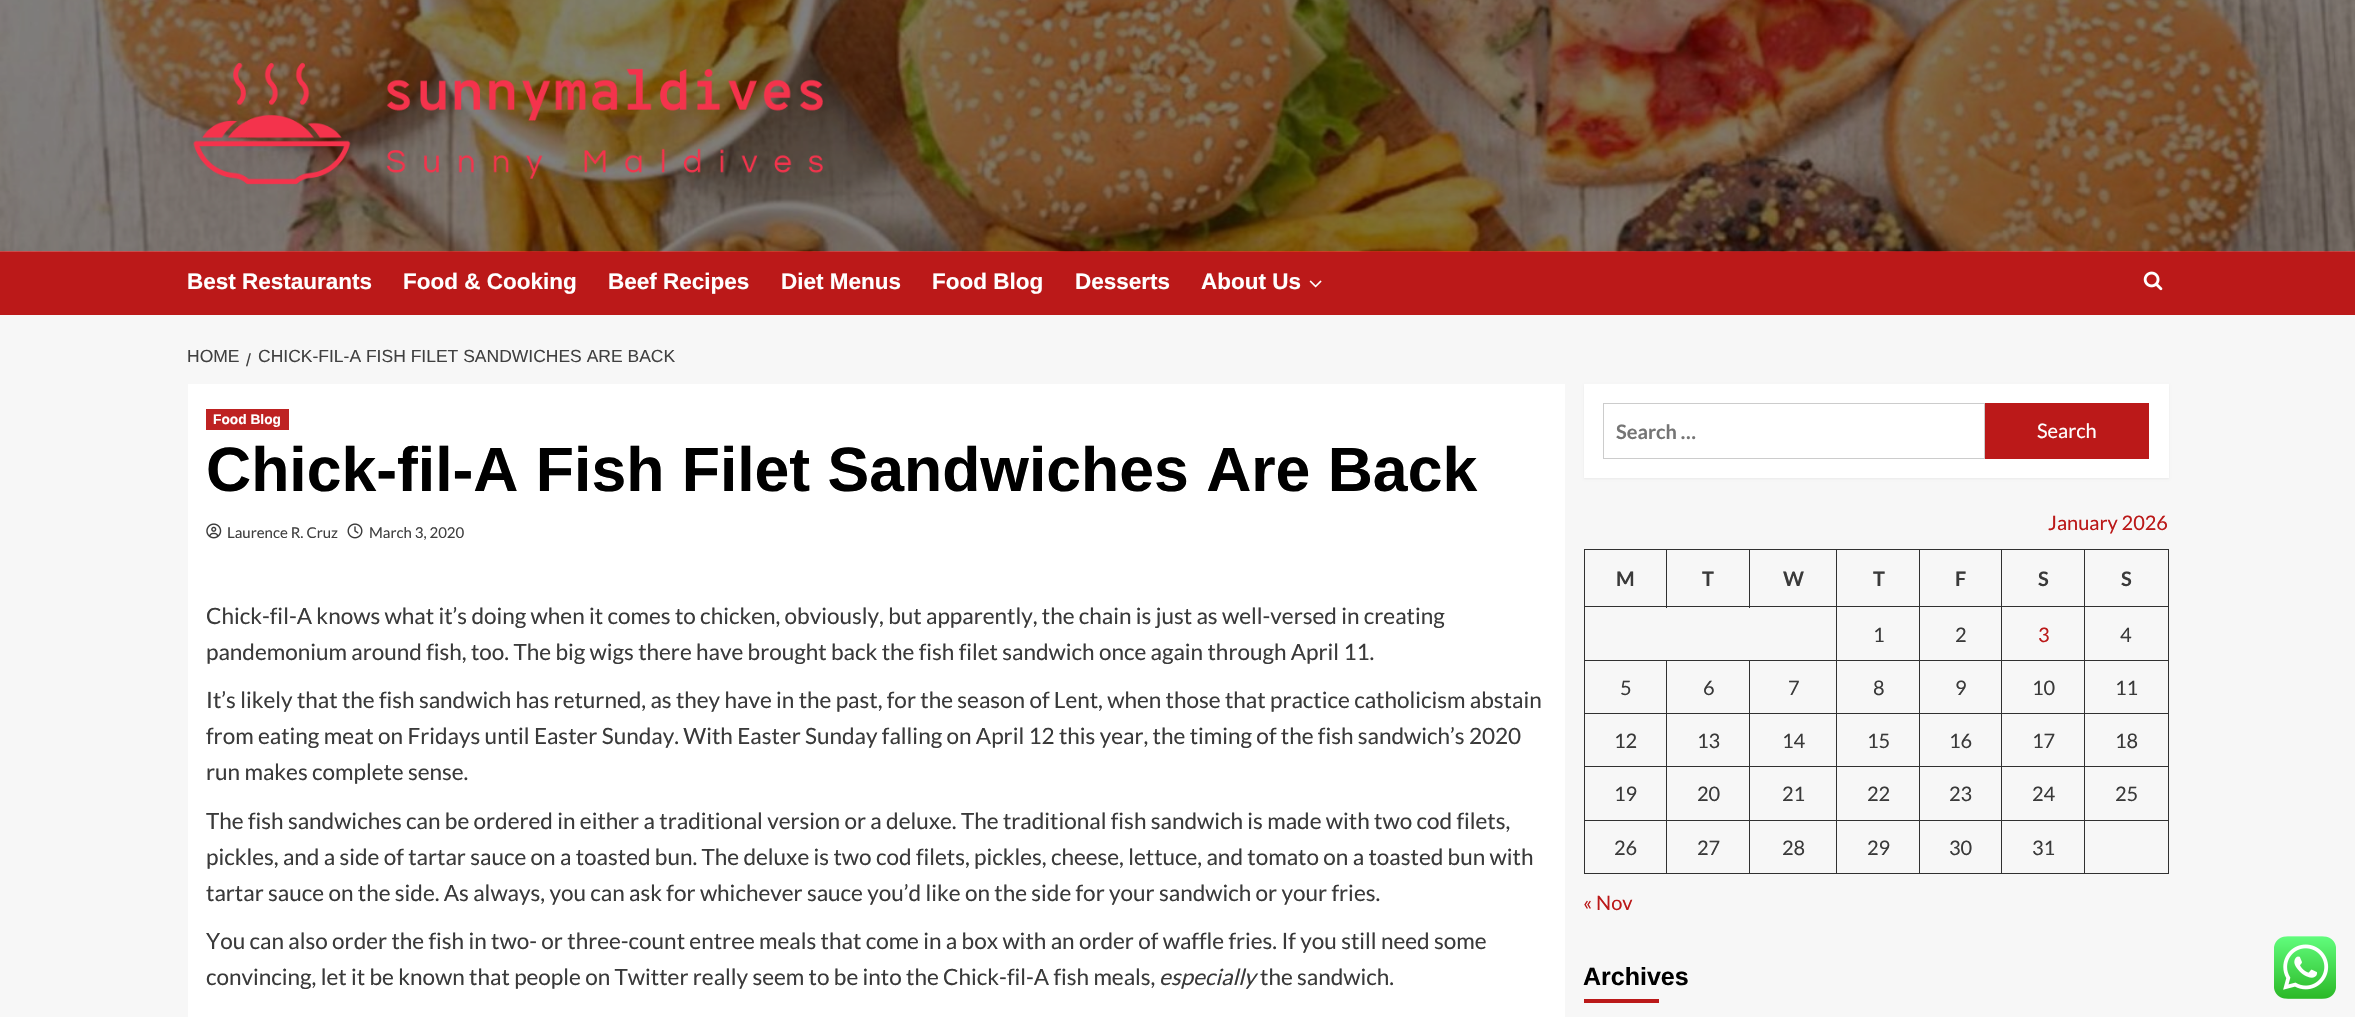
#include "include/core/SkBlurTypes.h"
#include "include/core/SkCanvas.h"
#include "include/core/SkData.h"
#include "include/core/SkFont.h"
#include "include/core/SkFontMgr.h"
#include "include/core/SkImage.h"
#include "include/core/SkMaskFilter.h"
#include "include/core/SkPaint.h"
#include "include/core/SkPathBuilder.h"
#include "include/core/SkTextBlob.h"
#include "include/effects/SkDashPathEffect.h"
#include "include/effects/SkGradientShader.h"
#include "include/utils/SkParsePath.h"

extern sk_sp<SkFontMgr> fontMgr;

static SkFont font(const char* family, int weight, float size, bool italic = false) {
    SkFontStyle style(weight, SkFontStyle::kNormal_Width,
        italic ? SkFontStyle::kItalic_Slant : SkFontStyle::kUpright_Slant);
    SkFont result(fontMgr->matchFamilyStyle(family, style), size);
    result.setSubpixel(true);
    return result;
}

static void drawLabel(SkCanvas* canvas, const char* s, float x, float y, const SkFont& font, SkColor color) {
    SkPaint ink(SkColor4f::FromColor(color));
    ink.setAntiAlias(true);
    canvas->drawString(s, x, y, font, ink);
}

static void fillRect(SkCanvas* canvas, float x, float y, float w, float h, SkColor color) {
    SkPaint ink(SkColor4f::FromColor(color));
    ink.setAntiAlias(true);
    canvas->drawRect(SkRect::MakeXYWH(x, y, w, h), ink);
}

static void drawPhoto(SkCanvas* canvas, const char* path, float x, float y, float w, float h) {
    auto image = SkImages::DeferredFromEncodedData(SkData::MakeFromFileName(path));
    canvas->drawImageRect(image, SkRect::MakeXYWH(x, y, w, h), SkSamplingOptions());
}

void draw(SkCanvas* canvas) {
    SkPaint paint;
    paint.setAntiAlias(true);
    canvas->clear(0xFFF7F7F7);
    fillRect(canvas, 0, 251, 2355, 64, 0xFFBB1919);
    drawPhoto(canvas, "assets/img1.png", 0, 0, 2355, 252);
    drawPhoto(canvas, "assets/img2.png", 193, 62, 630, 123);
    SkFont font1 = font("Liberation Sans", 700, 22.5f);
    drawLabel(canvas, "Best Restaurants", 187, 289, font1, 0xFFFFFFFF);
    drawLabel(canvas, "Food & Cooking", 403, 289, font1, 0xFFFFFFFF);
    drawLabel(canvas, "Beef Recipes", 608, 289, font1, 0xFFFFFFFF);
    drawLabel(canvas, "Diet Menus", 781, 289, font1, 0xFFFFFFFF);
    drawLabel(canvas, "Food Blog", 932, 289, font1, 0xFFFFFFFF);
    drawLabel(canvas, "Desserts", 1075, 289, font1, 0xFFFFFFFF);
    drawLabel(canvas, "About Us", 1201, 289, font1, 0xFFFFFFFF);
    drawPhoto(canvas, "assets/img3.png", 1309, 280, 13, 8);
    drawPhoto(canvas, "assets/img4.png", 2143, 271, 20, 20);
    SkFont font2 = font("Liberation Sans", 400, 17.5f);
    drawLabel(canvas, "HOME", 187, 362, font2, 0xFF404040);
    drawLabel(canvas, "/", 246, 366, font2, 0xFF404040);
    drawLabel(canvas, "CHICK-FIL-A FISH FILET SANDWICHES ARE BACK", 258, 362, font2, 0xFF404040);
    fillRect(canvas, 188, 384, 1377, 633, 0xFFFFFFFF);
    fillRect(canvas, 206, 409, 83, 21, 0xFFBE2222);
    SkFont font3 = font("Liberation Sans", 700, 13.75f);
    drawLabel(canvas, "Food Blog", 213, 424, font3, 0xFFFFFFFF);
    SkFont font4 = font("Liberation Sans", 700, 62.5f);
    drawLabel(canvas, "Chick-fil-A Fish Filet Sandwiches Are Back", 206, 491, font4, 0xFF000000);
    drawPhoto(canvas, "assets/img5.png", 206, 523, 16, 16);
    SkFont font5 = font("Lato", 400, 15);
    drawLabel(canvas, "Laurence R. Cruz", 227, 538, font5, 0xFF404040);
    drawPhoto(canvas, "assets/img6.png", 347, 523, 16, 16);
    drawLabel(canvas, "March 3, 2020", 369, 538, font5, 0xFF404040);
    SkFont font6 = font("Lato", 400, 22.5f);
    drawLabel(canvas, "Chick-fil-A knows what it’s doing when it comes to chicken, obviously, but apparently, the chain is just as well-versed in creating", 206, 624, font6, 0xFF3A3A3A);
    drawLabel(canvas, "pandemonium around fish, too. The big wigs there have brought back the fish filet sandwich once again through April 11.", 206, 660, font6, 0xFF3A3A3A);
    drawLabel(canvas, "It’s likely that the fish sandwich has returned, as they have in the past, for the season of Lent, when those that practice catholicism abstain", 206, 708, font6, 0xFF3A3A3A);
    drawLabel(canvas, "from eating meat on Fridays until Easter Sunday. With Easter Sunday falling on April 12 this year, the timing of the fish sandwich’s 2020", 206, 744, font6, 0xFF3A3A3A);
    drawLabel(canvas, "run makes complete sense.", 206, 780, font6, 0xFF3A3A3A);
    drawLabel(canvas, "The fish sandwiches can be ordered in either a traditional version or a deluxe. The traditional fish sandwich is made with two cod filets,", 206, 829, font6, 0xFF3A3A3A);
    drawLabel(canvas, "pickles, and a side of tartar sauce on a toasted bun. The deluxe is two cod filets, pickles, cheese, lettuce, and tomato on a toasted bun with", 206, 865, font6, 0xFF3A3A3A);
    drawLabel(canvas, "tartar sauce on the side. As always, you can ask for whichever sauce you’d like on the side for your sandwich or your fries.", 206, 901, font6, 0xFF3A3A3A);
    drawLabel(canvas, "You can also order the fish in two- or three-count entree meals that come in a box with an order of waffle fries. If you still need some", 206, 949, font6, 0xFF3A3A3A);
    drawLabel(canvas, "convincing, let it be known that people on Twitter really seem to be into the Chick-fil-A fish meals,", 206, 985, font6, 0xFF3A3A3A);
    SkFont font7 = font("Lato", 400, 22.5f, true);
    drawLabel(canvas, "especially", 1159, 985, font7, 0xFF3A3A3A);
    drawLabel(canvas, "the sandwich.", 1260, 985, font6, 0xFF3A3A3A);
    paint.setColor(0x0D000000);
    paint.setMaskFilter(SkMaskFilter::MakeBlur(kNormal_SkBlurStyle, 1));
    canvas->drawRect(SkRect::MakeXYWH(1584, 385, 585, 94), paint);
    paint.setMaskFilter(nullptr);
    fillRect(canvas, 1584, 384, 585, 94, 0xFFFFFFFF);
    paint.setStroke(true);
    paint.setStrokeWidth(1);
    paint.setColor(0xFFCCCCCC);
    canvas->drawRect(SkRect::MakeXYWH(1603.5f, 403.5f, 381, 55), paint);
    SkFont font8 = font("Lato", 700, 20);
    drawLabel(canvas, "Search …", 1616, 439, font8, 0xFF757575);
    fillRect(canvas, 1985, 403, 164, 56, 0xFFBB1919);
    SkFont font9 = font("Lato", 400, 20);
    drawLabel(canvas, "Search", 2037, 438, font9, 0xFFFFFFFF);
    drawLabel(canvas, "January 2026", 2048, 530, font9, 0xFFBB1919);
    fillRect(canvas, 2084, 549, 85, 1, 0xFF313131);
    fillRect(canvas, 2084, 606, 85, 1, 0xFF313131);
    fillRect(canvas, 2084, 660, 85, 1, 0xFF313131);
    fillRect(canvas, 2084, 713, 85, 1, 0xFF313131);
    fillRect(canvas, 2084, 766, 85, 1, 0xFF313131);
    fillRect(canvas, 2084, 820, 85, 1, 0xFF313131);
    fillRect(canvas, 2168, 820, 1, 54, 0xFF313131);
    fillRect(canvas, 2084, 873, 85, 1, 0xFF313131);
    fillRect(canvas, 2084, 820, 1, 54, 0xFF313131);
    fillRect(canvas, 2001, 820, 84, 1, 0xFF313131);
    fillRect(canvas, 2084, 766, 1, 55, 0xFF313131);
    fillRect(canvas, 2001, 766, 84, 1, 0xFF313131);
    fillRect(canvas, 2084, 713, 1, 55, 0xFF313131);
    fillRect(canvas, 2001, 713, 84, 1, 0xFF313131);
    fillRect(canvas, 2084, 660, 1, 54, 0xFF313131);
    fillRect(canvas, 2001, 660, 84, 1, 0xFF313131);
    fillRect(canvas, 2084, 606, 1, 55, 0xFF313131);
    fillRect(canvas, 2001, 606, 84, 1, 0xFF313131);
    fillRect(canvas, 2084, 549, 1, 59, 0xFF313131);
    fillRect(canvas, 2001, 549, 84, 1, 0xFF313131);
    fillRect(canvas, 2001, 873, 84, 1, 0xFF313131);
    fillRect(canvas, 2001, 820, 1, 54, 0xFF313131);
    fillRect(canvas, 1919, 820, 84, 1, 0xFF313131);
    fillRect(canvas, 2001, 766, 1, 55, 0xFF313131);
    fillRect(canvas, 1919, 766, 84, 1, 0xFF313131);
    fillRect(canvas, 2001, 713, 1, 55, 0xFF313131);
    fillRect(canvas, 1919, 713, 84, 1, 0xFF313131);
    fillRect(canvas, 2001, 660, 1, 54, 0xFF313131);
    fillRect(canvas, 1919, 660, 84, 1, 0xFF313131);
    fillRect(canvas, 2001, 606, 1, 55, 0xFF313131);
    fillRect(canvas, 1919, 606, 84, 1, 0xFF313131);
    fillRect(canvas, 2001, 549, 1, 59, 0xFF313131);
    fillRect(canvas, 1919, 549, 84, 1, 0xFF313131);
    fillRect(canvas, 1919, 873, 84, 1, 0xFF313131);
    fillRect(canvas, 1919, 820, 1, 54, 0xFF313131);
    fillRect(canvas, 1836, 820, 84, 1, 0xFF313131);
    fillRect(canvas, 1919, 766, 1, 55, 0xFF313131);
    fillRect(canvas, 1836, 766, 84, 1, 0xFF313131);
    fillRect(canvas, 1919, 713, 1, 55, 0xFF313131);
    fillRect(canvas, 1836, 713, 84, 1, 0xFF313131);
    fillRect(canvas, 1919, 660, 1, 54, 0xFF313131);
    fillRect(canvas, 1836, 660, 84, 1, 0xFF313131);
    fillRect(canvas, 1919, 606, 1, 55, 0xFF313131);
    fillRect(canvas, 1836, 606, 84, 1, 0xFF313131);
    fillRect(canvas, 1919, 549, 1, 59, 0xFF313131);
    fillRect(canvas, 1836, 549, 84, 1, 0xFF313131);
    fillRect(canvas, 1836, 873, 84, 1, 0xFF313131);
    fillRect(canvas, 1836, 820, 1, 54, 0xFF313131);
    fillRect(canvas, 1749, 820, 89, 1, 0xFF313131);
    fillRect(canvas, 1836, 766, 1, 55, 0xFF313131);
    fillRect(canvas, 1749, 766, 89, 1, 0xFF313131);
    fillRect(canvas, 1836, 713, 1, 55, 0xFF313131);
    fillRect(canvas, 1749, 713, 89, 1, 0xFF313131);
    fillRect(canvas, 1836, 660, 1, 54, 0xFF313131);
    fillRect(canvas, 1749, 660, 89, 1, 0xFF313131);
    fillRect(canvas, 1836, 606, 1, 55, 0xFF313131);
    fillRect(canvas, 1584, 606, 254, 1, 0xFF313131);
    fillRect(canvas, 1836, 549, 1, 59, 0xFF313131);
    fillRect(canvas, 1749, 549, 89, 1, 0xFF313131);
    fillRect(canvas, 1749, 549, 1, 59, 0xFF313131);
    fillRect(canvas, 1666, 549, 84, 1, 0xFF313131);
    fillRect(canvas, 1666, 549, 1, 59, 0xFF313131);
    fillRect(canvas, 1584, 549, 84, 1, 0xFF313131);
    fillRect(canvas, 1749, 873, 89, 1, 0xFF313131);
    fillRect(canvas, 1749, 820, 1, 54, 0xFF313131);
    fillRect(canvas, 1666, 820, 84, 1, 0xFF313131);
    fillRect(canvas, 1749, 766, 1, 55, 0xFF313131);
    fillRect(canvas, 1666, 766, 84, 1, 0xFF313131);
    fillRect(canvas, 1749, 713, 1, 55, 0xFF313131);
    fillRect(canvas, 1666, 713, 84, 1, 0xFF313131);
    fillRect(canvas, 1749, 660, 1, 54, 0xFF313131);
    fillRect(canvas, 1666, 660, 84, 1, 0xFF313131);
    fillRect(canvas, 1666, 873, 84, 1, 0xFF313131);
    fillRect(canvas, 1666, 820, 1, 54, 0xFF313131);
    fillRect(canvas, 1584, 820, 84, 1, 0xFF313131);
    fillRect(canvas, 1666, 766, 1, 55, 0xFF313131);
    fillRect(canvas, 1584, 766, 84, 1, 0xFF313131);
    fillRect(canvas, 1666, 713, 1, 55, 0xFF313131);
    fillRect(canvas, 1584, 713, 84, 1, 0xFF313131);
    fillRect(canvas, 1666, 660, 1, 54, 0xFF313131);
    fillRect(canvas, 1584, 660, 84, 1, 0xFF313131);
    fillRect(canvas, 1584, 873, 84, 1, 0xFF313131);
    fillRect(canvas, 1584, 820, 1, 54, 0xFF313131);
    fillRect(canvas, 1584, 766, 1, 55, 0xFF313131);
    fillRect(canvas, 1584, 713, 1, 55, 0xFF313131);
    fillRect(canvas, 1584, 660, 1, 54, 0xFF313131);
    fillRect(canvas, 1584, 606, 1, 55, 0xFF313131);
    fillRect(canvas, 1584, 549, 1, 59, 0xFF313131);
    drawLabel(canvas, "M", 1616, 586, font8, 0xFF3A3A3A);
    drawLabel(canvas, "T", 1702, 586, font8, 0xFF3A3A3A);
    drawLabel(canvas, "W", 1783, 586, font8, 0xFF3A3A3A);
    drawLabel(canvas, "T", 1873, 586, font8, 0xFF3A3A3A);
    drawLabel(canvas, "F", 1955, 586, font8, 0xFF3A3A3A);
    drawLabel(canvas, "S", 2038, 586, font8, 0xFF3A3A3A);
    fillRect(canvas, 2168, 766, 1, 55, 0xFF313131);
    fillRect(canvas, 2168, 713, 1, 55, 0xFF313131);
    fillRect(canvas, 2168, 660, 1, 54, 0xFF313131);
    fillRect(canvas, 2168, 606, 1, 55, 0xFF313131);
    fillRect(canvas, 2168, 549, 1, 59, 0xFF313131);
    drawLabel(canvas, "S", 2121, 586, font8, 0xFF3A3A3A);
    drawLabel(canvas, "1", 1873, 642, font9, 0xFF3A3A3A);
    drawLabel(canvas, "2", 1955, 642, font9, 0xFF3A3A3A);
    drawLabel(canvas, "3", 2038, 642, font9, 0xFFBB1919);
    drawLabel(canvas, "4", 2120, 642, font9, 0xFF3A3A3A);
    drawLabel(canvas, "5", 1620, 695, font9, 0xFF3A3A3A);
    drawLabel(canvas, "6", 1703, 695, font9, 0xFF3A3A3A);
    drawLabel(canvas, "7", 1788, 695, font9, 0xFF3A3A3A);
    drawLabel(canvas, "8", 1873, 695, font9, 0xFF3A3A3A);
    drawLabel(canvas, "9", 1955, 695, font9, 0xFF3A3A3A);
    drawLabel(canvas, "10", 2032, 695, font9, 0xFF3A3A3A);
    drawLabel(canvas, "11", 2115, 695, font9, 0xFF3A3A3A);
    drawLabel(canvas, "12", 1614, 748, font9, 0xFF3A3A3A);
    drawLabel(canvas, "13", 1697, 748, font9, 0xFF3A3A3A);
    drawLabel(canvas, "14", 1782, 748, font9, 0xFF3A3A3A);
    drawLabel(canvas, "15", 1867, 748, font9, 0xFF3A3A3A);
    drawLabel(canvas, "16", 1949, 748, font9, 0xFF3A3A3A);
    drawLabel(canvas, "17", 2032, 748, font9, 0xFF3A3A3A);
    drawLabel(canvas, "18", 2115, 748, font9, 0xFF3A3A3A);
    drawLabel(canvas, "19", 1614, 801, font9, 0xFF3A3A3A);
    drawLabel(canvas, "20", 1697, 801, font9, 0xFF3A3A3A);
    drawLabel(canvas, "21", 1782, 801, font9, 0xFF3A3A3A);
    drawLabel(canvas, "22", 1867, 801, font9, 0xFF3A3A3A);
    drawLabel(canvas, "23", 1949, 801, font9, 0xFF3A3A3A);
    drawLabel(canvas, "24", 2032, 801, font9, 0xFF3A3A3A);
    drawLabel(canvas, "25", 2115, 801, font9, 0xFF3A3A3A);
    drawLabel(canvas, "26", 1614, 855, font9, 0xFF3A3A3A);
    drawLabel(canvas, "27", 1697, 855, font9, 0xFF3A3A3A);
    drawLabel(canvas, "28", 1782, 855, font9, 0xFF3A3A3A);
    drawLabel(canvas, "29", 1867, 855, font9, 0xFF3A3A3A);
    drawLabel(canvas, "30", 1949, 855, font9, 0xFF3A3A3A);
    drawLabel(canvas, "31", 2032, 855, font9, 0xFF3A3A3A);
    drawLabel(canvas, "« Nov", 1583, 910, font9, 0xFFBB1919);
    SkFont font10 = font("Liberation Sans", 700, 25);
    drawLabel(canvas, "Archives", 1583, 985, font10, 0xFF000000);
    fillRect(canvas, 1584, 999, 75, 4, 0xFFBB1919);
    drawPhoto(canvas, "assets/img7.png", 2274, 936, 62, 63);
}
